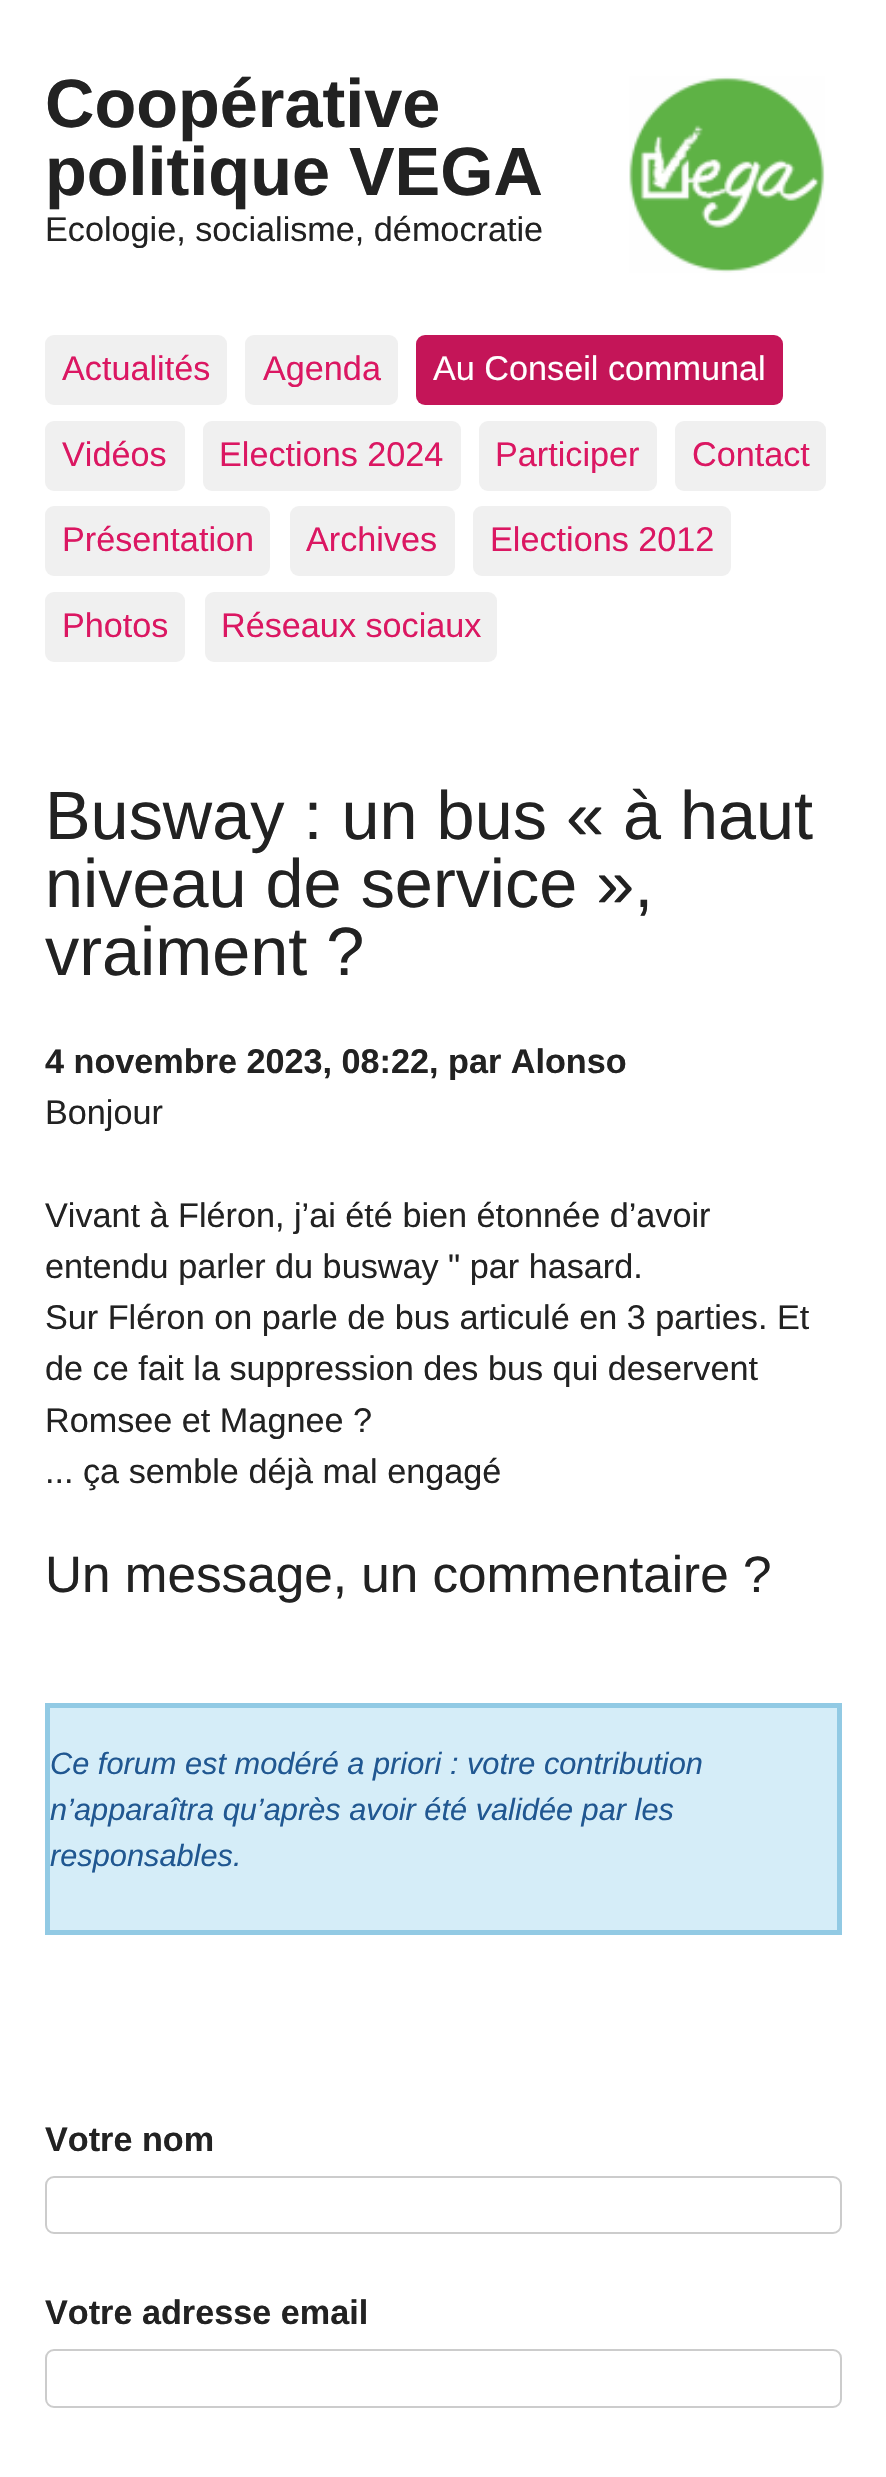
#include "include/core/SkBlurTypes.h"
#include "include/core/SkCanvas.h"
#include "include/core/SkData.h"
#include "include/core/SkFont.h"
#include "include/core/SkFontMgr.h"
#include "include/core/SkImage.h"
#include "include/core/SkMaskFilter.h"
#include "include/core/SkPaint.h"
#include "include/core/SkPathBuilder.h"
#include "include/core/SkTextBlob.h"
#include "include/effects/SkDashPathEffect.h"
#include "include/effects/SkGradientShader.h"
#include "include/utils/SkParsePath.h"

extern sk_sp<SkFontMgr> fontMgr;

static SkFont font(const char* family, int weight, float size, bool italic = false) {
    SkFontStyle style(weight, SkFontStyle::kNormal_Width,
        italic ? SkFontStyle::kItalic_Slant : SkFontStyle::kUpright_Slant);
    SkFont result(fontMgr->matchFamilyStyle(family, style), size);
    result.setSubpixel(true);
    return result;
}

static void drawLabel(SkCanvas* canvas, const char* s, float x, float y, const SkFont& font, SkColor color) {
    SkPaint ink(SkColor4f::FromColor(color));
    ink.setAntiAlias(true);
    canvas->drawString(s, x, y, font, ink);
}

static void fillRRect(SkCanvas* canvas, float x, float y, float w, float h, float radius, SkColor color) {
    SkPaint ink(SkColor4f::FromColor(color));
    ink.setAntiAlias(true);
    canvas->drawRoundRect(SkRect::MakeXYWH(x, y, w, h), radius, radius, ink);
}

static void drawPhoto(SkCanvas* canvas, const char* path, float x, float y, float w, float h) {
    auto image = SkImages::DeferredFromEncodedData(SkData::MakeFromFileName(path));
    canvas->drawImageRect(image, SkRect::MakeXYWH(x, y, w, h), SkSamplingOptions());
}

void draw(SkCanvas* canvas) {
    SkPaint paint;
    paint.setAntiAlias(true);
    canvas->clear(0xFFFFFFFF);
    SkFont font1 = font("Liberation Sans", 700, 68.4f);
    drawLabel(canvas, "Coopérative", 45, 127, font1, 0xFF222222);
    drawPhoto(canvas, "assets/img1.png", 629, 76, 196, 197);
    drawLabel(canvas, "politique VEGA", 45, 195, font1, 0xFF222222);
    SkFont font2 = font("Liberation Sans", 400, 34.2f);
    drawLabel(canvas, "Ecologie, socialisme, démocratie", 45, 241, font2, 0xFF222222);
    fillRRect(canvas, 45, 335, 182, 70, 9, 0xFFF0F0F0);
    drawLabel(canvas, "Actualités", 62, 380, font2, 0xFFDB1762);
    fillRRect(canvas, 245, 335, 153, 70, 9, 0xFFF0F0F0);
    drawLabel(canvas, "Agenda", 263, 380, font2, 0xFFDB1762);
    fillRRect(canvas, 416, 335, 367, 70, 9, 0xFFC41558);
    drawLabel(canvas, "Au Conseil communal", 433, 380, font2, 0xFFFFFFFF);
    fillRRect(canvas, 45, 421, 140, 70, 9, 0xFFF0F0F0);
    drawLabel(canvas, "Vidéos", 62, 466, font2, 0xFFDB1762);
    fillRRect(canvas, 203, 421, 258, 70, 9, 0xFFF0F0F0);
    drawLabel(canvas, "Elections 2024", 219, 466, font2, 0xFFDB1762);
    fillRRect(canvas, 479, 421, 178, 70, 9, 0xFFF0F0F0);
    drawLabel(canvas, "Participer", 495, 466, font2, 0xFFDB1762);
    fillRRect(canvas, 675, 421, 151, 70, 9, 0xFFF0F0F0);
    drawLabel(canvas, "Contact", 692, 466, font2, 0xFFDB1762);
    fillRRect(canvas, 45, 506, 225, 70, 9, 0xFFF0F0F0);
    drawLabel(canvas, "Présentation", 62, 551, font2, 0xFFDB1762);
    fillRRect(canvas, 290, 506, 165, 70, 9, 0xFFF0F0F0);
    drawLabel(canvas, "Archives", 306, 551, font2, 0xFFDB1762);
    fillRRect(canvas, 473, 506, 258, 70, 9, 0xFFF0F0F0);
    drawLabel(canvas, "Elections 2012", 490, 551, font2, 0xFFDB1762);
    fillRRect(canvas, 45, 592, 140, 70, 9, 0xFFF0F0F0);
    drawLabel(canvas, "Photos", 62, 637, font2, 0xFFDB1762);
    fillRRect(canvas, 205, 592, 292, 70, 9, 0xFFF0F0F0);
    drawLabel(canvas, "Réseaux sociaux", 221, 637, font2, 0xFFDB1762);
    SkFont font3 = font("Liberation Sans", 400, 68.4f);
    drawLabel(canvas, "Busway : un bus « à haut", 45, 839, font3, 0xFF222222);
    drawLabel(canvas, "niveau de service »,", 45, 907, font3, 0xFF222222);
    drawLabel(canvas, "vraiment ?", 45, 975, font3, 0xFF222222);
    SkFont font4 = font("Liberation Sans", 700, 34.2f);
    drawLabel(canvas, "4 novembre 2023, 08:22", 45, 1073, font4, 0xFF222222);
    drawLabel(canvas, ", par Alonso", 429, 1073, font4, 0xFF222222);
    drawLabel(canvas, "Bonjour", 45, 1124, font2, 0xFF222222);
    drawLabel(canvas, "Vivant à Fléron, j’ai été bien étonnée d’avoir", 45, 1227, font2, 0xFF222222);
    drawLabel(canvas, "entendu parler du busway \" par hasard.", 45, 1278, font2, 0xFF222222);
    drawLabel(canvas, "Sur Fléron on parle de bus articulé en 3 parties. Et", 45, 1329, font2, 0xFF222222);
    drawLabel(canvas, "de ce fait la suppression des bus qui deservent", 45, 1380, font2, 0xFF222222);
    drawLabel(canvas, "Romsee et Magnee ?", 45, 1432, font2, 0xFF222222);
    drawLabel(canvas, "... ça semble déjà mal engagé", 45, 1483, font2, 0xFF222222);
    SkFont font5 = font("Liberation Sans", 400, 51.25f);
    drawLabel(canvas, "Un message, un commentaire ?", 45, 1592, font5, 0xFF222222);
    paint.setColor(0xFFD5EDF8);
    canvas->drawRect(SkRect::MakeXYWH(47.5f, 1705.5f, 792, 227), paint);
    paint.setStroke(true);
    paint.setStrokeWidth(5);
    paint.setColor(0xFF92CAE4);
    canvas->drawRect(SkRect::MakeXYWH(47.5f, 1705.5f, 792, 227), paint);
    SkFont font6 = font("Liberation Sans", 400, 30.75f, true);
    drawLabel(canvas, "Ce forum est modéré a priori : votre contribution", 50, 1774, font6, 0xFF205791);
    drawLabel(canvas, "n’apparaîtra qu’après avoir été validée par les", 50, 1820, font6, 0xFF205791);
    drawLabel(canvas, "responsables.", 50, 1866, font6, 0xFF205791);
    drawLabel(canvas, "Votre nom", 45, 2151, font4, 0xFF222222);
    paint.setStrokeWidth(2);
    paint.setColor(0xFFCCCCCC);
    canvas->drawRoundRect(SkRect::MakeXYWH(46, 2177, 795, 56), 8, 8, paint);
    drawLabel(canvas, "Votre adresse email", 45, 2324, font4, 0xFF222222);
    canvas->drawRoundRect(SkRect::MakeXYWH(46, 2350, 795, 57), 8, 8, paint);
}
